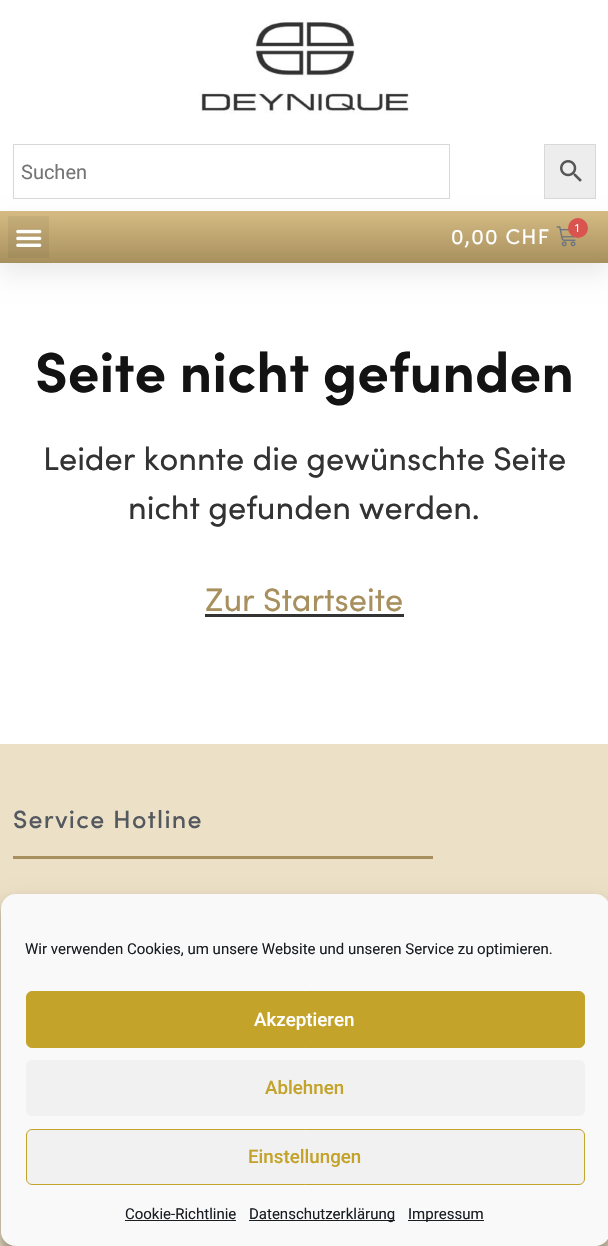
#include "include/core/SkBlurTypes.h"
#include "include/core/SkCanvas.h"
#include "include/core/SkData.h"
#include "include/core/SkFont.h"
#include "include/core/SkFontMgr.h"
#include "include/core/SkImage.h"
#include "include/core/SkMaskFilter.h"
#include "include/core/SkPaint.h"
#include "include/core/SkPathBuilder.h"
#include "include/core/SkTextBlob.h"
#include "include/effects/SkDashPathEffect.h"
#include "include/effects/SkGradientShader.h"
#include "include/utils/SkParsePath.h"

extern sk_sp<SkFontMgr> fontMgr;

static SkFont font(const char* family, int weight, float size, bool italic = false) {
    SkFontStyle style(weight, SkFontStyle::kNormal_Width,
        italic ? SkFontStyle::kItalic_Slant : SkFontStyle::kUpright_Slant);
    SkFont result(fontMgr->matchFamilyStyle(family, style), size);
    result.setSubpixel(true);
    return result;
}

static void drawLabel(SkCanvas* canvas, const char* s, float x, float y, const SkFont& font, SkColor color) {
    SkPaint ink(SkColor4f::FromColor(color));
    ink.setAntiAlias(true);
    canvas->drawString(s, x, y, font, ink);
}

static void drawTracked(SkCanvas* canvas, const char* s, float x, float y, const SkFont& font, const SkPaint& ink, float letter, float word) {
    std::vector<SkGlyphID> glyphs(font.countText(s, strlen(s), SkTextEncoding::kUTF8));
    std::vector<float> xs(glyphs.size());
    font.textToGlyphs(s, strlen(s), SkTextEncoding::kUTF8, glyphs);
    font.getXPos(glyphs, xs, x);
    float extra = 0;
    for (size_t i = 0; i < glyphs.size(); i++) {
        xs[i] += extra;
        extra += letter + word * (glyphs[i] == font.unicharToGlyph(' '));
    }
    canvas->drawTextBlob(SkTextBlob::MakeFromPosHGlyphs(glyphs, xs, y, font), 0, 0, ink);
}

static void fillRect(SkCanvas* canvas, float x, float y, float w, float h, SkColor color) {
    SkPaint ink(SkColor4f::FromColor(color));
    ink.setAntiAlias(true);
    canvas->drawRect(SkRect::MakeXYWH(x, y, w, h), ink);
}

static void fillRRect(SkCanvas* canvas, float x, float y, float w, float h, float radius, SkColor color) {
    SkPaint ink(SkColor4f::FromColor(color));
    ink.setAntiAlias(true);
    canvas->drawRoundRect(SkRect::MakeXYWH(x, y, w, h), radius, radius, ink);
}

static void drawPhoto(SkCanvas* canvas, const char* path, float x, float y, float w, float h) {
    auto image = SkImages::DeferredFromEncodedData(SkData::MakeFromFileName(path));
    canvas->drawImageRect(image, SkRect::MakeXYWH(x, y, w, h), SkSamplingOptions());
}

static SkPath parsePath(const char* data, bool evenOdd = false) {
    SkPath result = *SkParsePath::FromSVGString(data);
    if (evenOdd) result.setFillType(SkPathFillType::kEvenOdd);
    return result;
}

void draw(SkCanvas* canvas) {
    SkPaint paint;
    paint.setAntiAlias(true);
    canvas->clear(0xFFFFFFFF);
    drawPhoto(canvas, "assets/img1.png", 199, 19, 210, 95);
    paint.setColor(0xFFEDEDED);
    canvas->drawRect(SkRect::MakeXYWH(544.5f, 144.5f, 51, 54), paint);
    paint.setStroke(true);
    paint.setStrokeWidth(1);
    paint.setColor(0xFFD8D8D8);
    canvas->drawRect(SkRect::MakeXYWH(544.5f, 144.5f, 51, 54), paint);
    paint.setStroke(false);
    paint.setColor(0x14000000);
    paint.setMaskFilter(SkMaskFilter::MakeBlur(kNormal_SkBlurStyle, 12.5f));
    canvas->drawRect(SkRect::MakeXYWH(0, 224, 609, 51), paint);
    paint.setMaskFilter(nullptr);
    paint.setStroke(true);
    paint.setColor(0xFFD8D8D8);
    canvas->drawRect(SkRect::MakeXYWH(13.5f, 144.5f, 436, 54), paint);
    SkFont font1 = font("Roboto", 400, 20);
    drawLabel(canvas, "Suchen", 21, 179, font1, 0xFF757575);
    drawPhoto(canvas, "assets/img2.png", 560, 160, 22, 22);
    paint.setStroke(false);
    {
        const SkColor colors[] = {0xFFD5BB83, 0xFFA8905E};
        const float stops[] = {0, 1};
        const SkPoint ends[] = {{304, 211}, {304, 263}};
        paint.setShader(SkGradientShader::MakeLinear(ends, colors, stops, 2, SkTileMode::kClamp));
        paint.setAlpha(255);
    }
    canvas->drawRect(SkRect::MakeXYWH(0, 211, 608, 52), paint);
    fillRect(canvas, 8, 216, 41, 42, 0x0D000000);
    drawPhoto(canvas, "assets/img3.png", 16, 229, 26, 18);
    drawPhoto(canvas, "assets/img4.png", 556, 226, 20, 21);
    paint.setShader(nullptr);
    paint.setColor(0xFFD9534F);
    canvas->drawCircle(578, 228, 10, paint);
    SkFont font2 = font("Sofia", 400, 12);
    paint.setColor(0xFFFFFFFF);
    drawTracked(canvas, "1", 575, 232, font2, paint, 1.25f, 0);
    SkFont font3 = font("Sofia", 400, 21.25f);
    drawTracked(canvas, "0,00 CHF", 451, 244, font3, paint, 1.25f, 0);
    SkFont font4 = font("Sofia", 700, 56.25f);
    drawLabel(canvas, "Seite nicht gefunden", 35, 392, font4, 0xFF141313);
    SkFont font5 = font("Sofia", 400, 32.5f);
    drawLabel(canvas, "Leider konnte die gewünschte Seite", 43, 470, font5, 0xFF333333);
    drawLabel(canvas, "nicht gefunden werden.", 128, 519, font5, 0xFF333333);
    drawLabel(canvas, "Zur Startseite", 205, 611, font5, 0xFFA8905E);
    fillRect(canvas, 205, 614, 199, 3, 0xFF333333);
    fillRect(canvas, 0, 744, 608, 502, 0xFFECE0C6);
    SkFont font6 = font("Sofia", 500, 25);
    paint.setColor(0xFF54595F);
    drawTracked(canvas, "Service Hotline", 13, 828, font6, paint, 1.25f, 0);
    fillRect(canvas, 13, 856, 420, 3, 0xFFA8905E);
    drawPhoto(canvas, "assets/img5.png", 13, 1245, 3, 1);
    canvas->save();
    canvas->clipPath(parsePath("M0 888H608V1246H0ZM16 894H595C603.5 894 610 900.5 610 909V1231C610 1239.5 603.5 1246 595 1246H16C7.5 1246 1 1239.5 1 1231V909C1 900.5 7.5 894 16 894Z", true), true);
    paint.setColor(0x3B000000);
    paint.setMaskFilter(SkMaskFilter::MakeBlur(kNormal_SkBlurStyle, 4));
    canvas->drawRoundRect(SkRect::MakeXYWH(1, 901, 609, 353), 15, 15, paint);
    paint.setMaskFilter(nullptr);
    canvas->restore();
    canvas->save();
    canvas->clipPath(parsePath("M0 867H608V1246H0ZM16 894H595C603.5 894 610 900.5 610 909V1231C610 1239.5 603.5 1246 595 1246H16C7.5 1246 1 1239.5 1 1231V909C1 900.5 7.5 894 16 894Z", true), true);
    paint.setColor(0x30000000);
    paint.setMaskFilter(SkMaskFilter::MakeBlur(kNormal_SkBlurStyle, 12.5f));
    canvas->drawRoundRect(SkRect::MakeXYWH(1, 906, 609, 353), 15, 15, paint);
    paint.setMaskFilter(nullptr);
    canvas->restore();
    fillRRect(canvas, 1, 894, 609, 352, 15, 0xFFF9F9F9);
    SkFont font7 = font("Roboto", 400, 15);
    drawLabel(canvas, "Wir verwenden Cookies, um unsere Website und unseren Service zu optimieren.", 25, 954, font7, 0xFF191E23);
    paint.setColor(0xFFC3A32A);
    canvas->drawRoundRect(SkRect::MakeXYWH(26.5f, 991.5f, 558, 56), 5.5f, 5.5f, paint);
    paint.setStroke(true);
    canvas->drawRoundRect(SkRect::MakeXYWH(26.5f, 991.5f, 558, 56), 5.5f, 5.5f, paint);
    SkFont font8 = font("Roboto", 500, 18.75f);
    drawLabel(canvas, "Akzeptieren", 254, 1026, font8, 0xFFFFFFFF);
    fillRRect(canvas, 26, 1060, 559, 56, 6, 0xFFF1F1F1);
    drawLabel(canvas, "Ablehnen", 265, 1094, font8, 0xFFC3A32A);
    paint.setStroke(false);
    paint.setColor(0xFFF1F1F1);
    canvas->drawRoundRect(SkRect::MakeXYWH(26.5f, 1129.5f, 558, 55), 5.5f, 5.5f, paint);
    paint.setStroke(true);
    paint.setColor(0xFFC3A32A);
    canvas->drawRoundRect(SkRect::MakeXYWH(26.5f, 1129.5f, 558, 55), 5.5f, 5.5f, paint);
    drawLabel(canvas, "Einstellungen", 248, 1163, font8, 0xFFC3A32A);
    drawLabel(canvas, "Cookie-Richtlinie", 125, 1219, font7, 0xFF191E23);
    fillRect(canvas, 125, 1220, 111, 1, 0xFF191E23);
    fillRect(canvas, 249, 1220, 146, 1, 0xFF191E23);
    drawLabel(canvas, "Datenschutzerklärung", 249, 1219, font7, 0xFF191E23);
    fillRect(canvas, 408, 1220, 76, 1, 0xFF191E23);
    drawLabel(canvas, "Impressum", 408, 1219, font7, 0xFF191E23);
}
